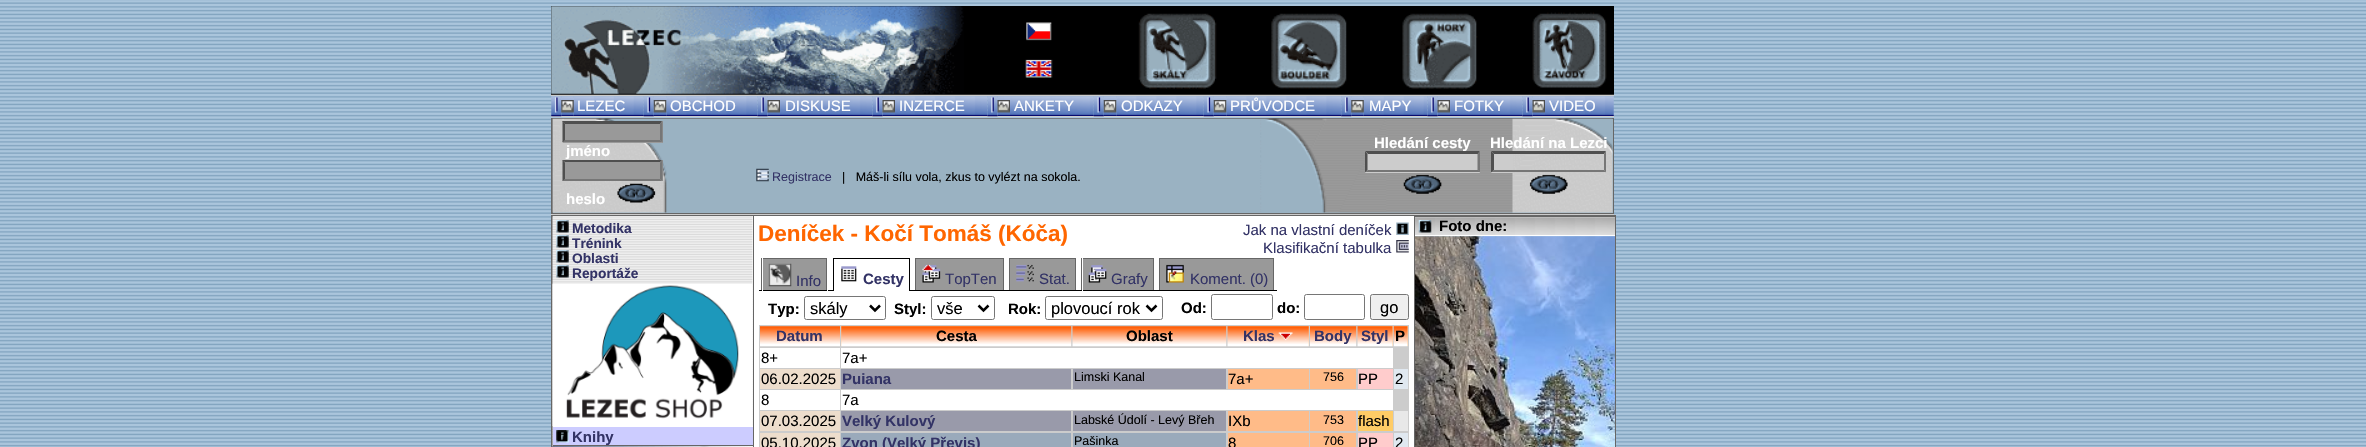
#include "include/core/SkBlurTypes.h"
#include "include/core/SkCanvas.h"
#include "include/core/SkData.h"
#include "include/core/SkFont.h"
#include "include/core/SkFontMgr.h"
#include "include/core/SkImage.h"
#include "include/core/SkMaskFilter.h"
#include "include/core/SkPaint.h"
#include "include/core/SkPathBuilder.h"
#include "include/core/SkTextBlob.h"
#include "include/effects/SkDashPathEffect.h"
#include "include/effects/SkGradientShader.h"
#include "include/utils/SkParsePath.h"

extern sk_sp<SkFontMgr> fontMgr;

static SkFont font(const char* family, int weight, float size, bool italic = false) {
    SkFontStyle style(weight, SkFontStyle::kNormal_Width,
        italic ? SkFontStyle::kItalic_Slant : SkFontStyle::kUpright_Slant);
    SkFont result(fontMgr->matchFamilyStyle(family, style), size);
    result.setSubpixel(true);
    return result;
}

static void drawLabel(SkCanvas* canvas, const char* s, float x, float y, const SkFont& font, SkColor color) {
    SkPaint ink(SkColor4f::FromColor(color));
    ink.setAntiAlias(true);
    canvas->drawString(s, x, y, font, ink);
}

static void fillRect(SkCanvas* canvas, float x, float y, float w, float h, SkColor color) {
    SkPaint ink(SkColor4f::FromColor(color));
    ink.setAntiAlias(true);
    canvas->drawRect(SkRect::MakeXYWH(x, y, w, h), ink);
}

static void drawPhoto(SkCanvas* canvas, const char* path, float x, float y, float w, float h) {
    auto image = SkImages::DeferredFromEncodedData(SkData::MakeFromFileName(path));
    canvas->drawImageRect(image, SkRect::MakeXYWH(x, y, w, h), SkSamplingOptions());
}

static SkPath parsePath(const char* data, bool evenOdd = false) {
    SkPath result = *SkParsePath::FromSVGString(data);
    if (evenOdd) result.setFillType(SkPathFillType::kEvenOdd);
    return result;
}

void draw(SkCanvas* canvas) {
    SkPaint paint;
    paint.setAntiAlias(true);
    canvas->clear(0xFFFFFFFF);
    drawPhoto(canvas, "assets/img1.png", 0, 0, 2366, 447);
    fillRect(canvas, 551, 6, 1063, 88, 0xFF000000);
    drawPhoto(canvas, "assets/img2.png", 551, 6, 413, 88);
    drawPhoto(canvas, "assets/img3.png", 1026, 22, 26, 19);
    drawPhoto(canvas, "assets/img4.png", 1025, 59, 28, 19);
    drawPhoto(canvas, "assets/img5.png", 1138, 13, 79, 76);
    drawPhoto(canvas, "assets/img6.png", 1271, 13, 76, 76);
    drawPhoto(canvas, "assets/img7.png", 1402, 13, 76, 76);
    drawPhoto(canvas, "assets/img8.png", 1532, 12, 75, 76);
    fillRect(canvas, 551, 94, 1063, 1, 0xFF333333);
    fillRect(canvas, 551, 95, 1063, 1, 0xFFCCCCCC);
    drawPhoto(canvas, "assets/img10.png", 561, 96, 13, 20);
    fillRect(canvas, 551, 116, 1063, 1, 0xFFCCCCCC);
    drawPhoto(canvas, "assets/img9.png", 551, 96, 11, 21);
    drawPhoto(canvas, "assets/img12.png", 573, 96, 71, 20);
    drawPhoto(canvas, "assets/img11.png", 561, 100, 13, 13);
    SkFont font1 = font("Liberation Sans", 400, 15);
    drawLabel(canvas, "LEZEC", 577, 111, font1, 0xFFFFFFFF);
    drawPhoto(canvas, "assets/img14.png", 653, 96, 14, 20);
    drawPhoto(canvas, "assets/img13.png", 643, 96, 11, 21);
    drawPhoto(canvas, "assets/img16.png", 666, 96, 92, 20);
    drawPhoto(canvas, "assets/img15.png", 653, 100, 14, 13);
    drawLabel(canvas, "OBCHOD", 670, 111, font1, 0xFFFFFFFF);
    drawPhoto(canvas, "assets/img18.png", 767, 96, 13, 20);
    drawPhoto(canvas, "assets/img17.png", 757, 96, 11, 21);
    drawPhoto(canvas, "assets/img19.png", 767, 100, 13, 13);
    drawPhoto(canvas, "assets/img20.png", 780, 96, 93, 20);
    drawLabel(canvas, "DISKUSE", 785, 111, font1, 0xFFFFFFFF);
    drawPhoto(canvas, "assets/img18.png", 882, 96, 13, 20);
    drawPhoto(canvas, "assets/img21.png", 872, 96, 11, 21);
    drawPhoto(canvas, "assets/img19.png", 882, 100, 13, 13);
    drawPhoto(canvas, "assets/img22.png", 895, 96, 93, 20);
    drawLabel(canvas, "INZERCE", 899, 111, font1, 0xFFFFFFFF);
    drawPhoto(canvas, "assets/img24.png", 997, 96, 13, 20);
    drawPhoto(canvas, "assets/img23.png", 987, 96, 11, 21);
    drawPhoto(canvas, "assets/img25.png", 997, 100, 13, 13);
    drawPhoto(canvas, "assets/img26.png", 1010, 96, 84, 20);
    drawLabel(canvas, "ANKETY", 1014, 111, font1, 0xFFFFFFFF);
    drawPhoto(canvas, "assets/img14.png", 1103, 96, 14, 20);
    drawPhoto(canvas, "assets/img27.png", 1093, 96, 11, 21);
    drawPhoto(canvas, "assets/img29.png", 1116, 96, 88, 20);
    drawPhoto(canvas, "assets/img28.png", 1103, 100, 14, 13);
    drawLabel(canvas, "ODKAZY", 1121, 111, font1, 0xFFFFFFFF);
    drawPhoto(canvas, "assets/img14.png", 1213, 96, 14, 20);
    drawPhoto(canvas, "assets/img30.png", 1203, 96, 11, 21);
    drawPhoto(canvas, "assets/img31.png", 1226, 96, 116, 20);
    drawPhoto(canvas, "assets/img15.png", 1213, 100, 14, 13);
    drawLabel(canvas, "PRŮVODCE", 1230, 111, font1, 0xFFFFFFFF);
    drawPhoto(canvas, "assets/img10.png", 1351, 96, 13, 20);
    drawPhoto(canvas, "assets/img32.png", 1341, 96, 11, 21);
    drawPhoto(canvas, "assets/img33.png", 1363, 96, 65, 20);
    drawPhoto(canvas, "assets/img11.png", 1351, 100, 13, 13);
    drawLabel(canvas, "MAPY", 1369, 111, font1, 0xFFFFFFFF);
    drawPhoto(canvas, "assets/img18.png", 1437, 96, 13, 20);
    drawPhoto(canvas, "assets/img34.png", 1427, 96, 11, 21);
    drawPhoto(canvas, "assets/img19.png", 1437, 100, 13, 13);
    drawPhoto(canvas, "assets/img35.png", 1450, 96, 73, 20);
    drawLabel(canvas, "FOTKY", 1454, 111, font1, 0xFFFFFFFF);
    drawPhoto(canvas, "assets/img24.png", 1532, 96, 13, 20);
    drawPhoto(canvas, "assets/img21.png", 1522, 96, 11, 21);
    drawPhoto(canvas, "assets/img25.png", 1532, 100, 13, 13);
    drawPhoto(canvas, "assets/img36.png", 1545, 96, 69, 20);
    drawLabel(canvas, "VIDEO", 1549, 111, font1, 0xFFFFFFFF);
    fillRect(canvas, 551, 118, 1063, 96, 0xFF666666);
    fillRect(canvas, 553, 119, 1060, 94, 0xFF9BB3C3);
    drawPhoto(canvas, "assets/img37.png", 552, 118, 1061, 95);
    SkFont font2 = font("Liberation Sans", 700, 15);
    drawLabel(canvas, "Hledání cesty", 1374, 148, font2, 0xFFFFFFFF);
    fillRect(canvas, 1365, 151, 115, 22, 0xFFCCCCCC);
    paint.setColor(0xFF4F4F4F);
    canvas->drawPath(parsePath("M1365 151H1480L1478 154H1368Z"), paint);
    paint.setColor(0xFF767676);
    canvas->drawPath(parsePath("M1480 151V172.5L1477.5 170V154Z"), paint);
    canvas->drawPath(parsePath("M1480 172H1365L1368 170H1478Z"), paint);
    paint.setColor(0xFF4F4F4F);
    canvas->drawPath(parsePath("M1365 172.5V151L1367.5 154V170Z"), paint);
    drawPhoto(canvas, "assets/img38.png", 1403, 174, 39, 20);
    drawLabel(canvas, "Hledání na Lezci", 1490, 148, font2, 0xFFFFFFFF);
    fillRect(canvas, 1491, 151, 22, 22, 0xFFCCCCCC);
    canvas->drawPath(parsePath("M1491 151H1606L1604 154H1494Z"), paint);
    paint.setColor(0xFF767676);
    canvas->drawPath(parsePath("M1606 151V172.5L1604 170V154Z"), paint);
    canvas->drawPath(parsePath("M1606 172H1491L1494 170H1604Z"), paint);
    paint.setColor(0xFF4F4F4F);
    canvas->drawPath(parsePath("M1491 172.5V151L1494 154V170Z"), paint);
    drawPhoto(canvas, "assets/img39.png", 1529, 174, 39, 20);
    fillRect(canvas, 563, 121, 100, 22, 0xFF999999);
    canvas->drawPath(parsePath("M562 121H662L660 124H565Z"), paint);
    paint.setColor(0xFF767676);
    canvas->drawPath(parsePath("M662.5 121V142.5L660 140V124Z"), paint);
    canvas->drawPath(parsePath("M662 142H562L565 140H660Z"), paint);
    paint.setColor(0xFF4F4F4F);
    canvas->drawPath(parsePath("M562.5 142.5V121L565 124V140Z"), paint);
    drawLabel(canvas, "jméno", 566, 156, font2, 0xFFFFFFFF);
    fillRect(canvas, 563, 160, 100, 21, 0xFF999999);
    canvas->drawPath(parsePath("M562 160H662L660 162H565Z"), paint);
    paint.setColor(0xFF767676);
    canvas->drawPath(parsePath("M662.5 160V181L660 179V162.5Z"), paint);
    canvas->drawPath(parsePath("M662 181H562L565 179H660Z"), paint);
    paint.setColor(0xFF4F4F4F);
    canvas->drawPath(parsePath("M562.5 181V160L565 162.5V179Z"), paint);
    drawLabel(canvas, "heslo", 566, 204, font2, 0xFFFFFFFF);
    drawPhoto(canvas, "assets/img40.png", 617, 183, 39, 20);
    drawPhoto(canvas, "assets/img41.png", 756, 168, 13, 14);
    SkFont font3 = font("Liberation Sans", 400, 12.5f);
    drawLabel(canvas, "Registrace", 772, 181, font3, 0xFF333366);
    drawLabel(canvas, "|   Máš-li sílu vola, zkus to vylézt na sokola.", 842, 181, font3, 0xFF000000);
    fillRect(canvas, 551, 214, 1063, 1, 0xFFCCCCCC);
    fillRect(canvas, 551, 215, 1065, 232, 0xFF666666);
    fillRect(canvas, 553, 216, 861, 231, 0xFFFFFFFF);
    drawPhoto(canvas, "assets/img42.png", 552, 216, 201, 231);
    drawPhoto(canvas, "assets/img43.png", 556, 220, 13, 13);
    SkFont font4 = font("Liberation Sans", 700, 13.75f);
    drawLabel(canvas, "Metodika", 572, 233, font4, 0xFF333366);
    drawPhoto(canvas, "assets/img43.png", 556, 235, 13, 13);
    drawLabel(canvas, "Trénink", 572, 248, font4, 0xFF333366);
    drawPhoto(canvas, "assets/img43.png", 556, 250, 13, 13);
    drawLabel(canvas, "Oblasti", 572, 263, font4, 0xFF333366);
    drawPhoto(canvas, "assets/img43.png", 556, 265, 13, 13);
    drawLabel(canvas, "Reportáže", 572, 278, font4, 0xFF333366);
    fillRect(canvas, 553, 426, 200, 1, 0xFFFFFFFF);
    drawPhoto(canvas, "assets/img44.png", 552, 283, 201, 144);
    fillRect(canvas, 553, 427, 200, 18, 0xFFCCCCFF);
    drawPhoto(canvas, "assets/img45.png", 556, 430, 13, 13);
    fillRect(canvas, 553, 445, 200, 1, 0xFF666666);
    drawLabel(canvas, "Knihy", 572, 442, font2, 0xFF333366);
    drawPhoto(canvas, "assets/img46.png", 552, 446, 201, 1);
    fillRect(canvas, 753, 216, 1, 231, 0xFF666666);
    SkFont font5 = font("Liberation Sans", 700, 22.5f);
    drawLabel(canvas, "Deníček - Kočí Tomáš (Kóča)", 758, 241, font5, 0xFFFF6600);
    drawLabel(canvas, "Jak na vlastní deníček", 1243, 235, font1, 0xFF333366);
    drawPhoto(canvas, "assets/img47.png", 1396, 222, 13, 13);
    drawLabel(canvas, "Klasifikační tabulka", 1263, 253, font1, 0xFF333366);
    drawPhoto(canvas, "assets/img48.png", 1396, 240, 13, 13);
    fillRect(canvas, 761, 258, 1, 32, 0xFF666666);
    fillRect(canvas, 763, 258, 64, 1, 0xFF666666);
    fillRect(canvas, 833, 258, 77, 1, 0xFF000000);
    fillRect(canvas, 915, 258, 89, 1, 0xFF666666);
    fillRect(canvas, 1009, 258, 67, 1, 0xFF666666);
    fillRect(canvas, 1081, 258, 1, 32, 0xFF666666);
    fillRect(canvas, 1083, 258, 71, 1, 0xFF666666);
    fillRect(canvas, 1159, 258, 115, 1, 0xFF666666);
    fillRect(canvas, 763, 259, 63, 31, 0xFF999999);
    drawPhoto(canvas, "assets/img49.png", 768, 263, 24, 24);
    drawLabel(canvas, "Info", 796, 286, font1, 0xFF333366);
    fillRect(canvas, 826, 259, 1, 31, 0xFF666666);
    fillRect(canvas, 833, 259, 1, 31, 0xFF000000);
    drawPhoto(canvas, "assets/img50.png", 841, 266, 16, 16);
    drawLabel(canvas, "Cesty", 863, 284, font2, 0xFF333366);
    fillRect(canvas, 909, 259, 1, 32, 0xFF000000);
    fillRect(canvas, 915, 259, 1, 31, 0xFF666666);
    fillRect(canvas, 916, 259, 87, 31, 0xFF999999);
    drawPhoto(canvas, "assets/img51.png", 922, 264, 19, 19);
    drawLabel(canvas, "TopTen", 945, 284, font1, 0xFF333366);
    fillRect(canvas, 1003, 259, 1, 31, 0xFF666666);
    fillRect(canvas, 1009, 259, 1, 31, 0xFF666666);
    fillRect(canvas, 1010, 259, 65, 31, 0xFF999999);
    drawPhoto(canvas, "assets/img52.png", 1016, 264, 18, 18);
    drawLabel(canvas, "Stat.", 1039, 284, font1, 0xFF333366);
    fillRect(canvas, 1075, 259, 1, 31, 0xFF666666);
    fillRect(canvas, 1083, 259, 70, 31, 0xFF999999);
    drawPhoto(canvas, "assets/img53.png", 1088, 265, 19, 18);
    drawLabel(canvas, "Grafy", 1111, 284, font1, 0xFF333366);
    fillRect(canvas, 1153, 259, 1, 31, 0xFF666666);
    fillRect(canvas, 1159, 259, 1, 31, 0xFF666666);
    fillRect(canvas, 1160, 259, 113, 31, 0xFF999999);
    drawPhoto(canvas, "assets/img54.png", 1166, 264, 18, 19);
    drawLabel(canvas, "Koment. (0)", 1190, 284, font1, 0xFF333366);
    fillRect(canvas, 1273, 259, 1, 31, 0xFF666666);
    fillRect(canvas, 759, 290, 3, 1, 0xFF000000);
    fillRect(canvas, 763, 290, 64, 1, 0xFF000000);
    fillRect(canvas, 828, 290, 6, 1, 0xFF000000);
    fillRect(canvas, 910, 290, 172, 1, 0xFF000000);
    fillRect(canvas, 1083, 290, 194, 1, 0xFF000000);
    drawLabel(canvas, "Typ:", 768, 314, font2, 0xFF000000);
    paint.setStroke(true);
    paint.setStrokeWidth(1);
    paint.setColor(0xFF767676);
    canvas->drawRoundRect(SkRect::MakeXYWH(804.5f, 296.5f, 81, 23), 2, 2, paint);
    paint.setStrokeWidth(2.5f);
    paint.setColor(0xFF000000);
    canvas->drawPath(parsePath("M870 305.5L875 310.5L880 305.5"), paint);
    SkFont font6 = font("Liberation Sans", 400, 16.5f);
    drawLabel(canvas, "skály", 810, 314, font6, 0xFF000000);
    drawLabel(canvas, "Styl:", 894, 314, font2, 0xFF000000);
    paint.setStrokeWidth(1);
    paint.setColor(0xFF767676);
    canvas->drawRoundRect(SkRect::MakeXYWH(931.5f, 296.5f, 63, 23), 2, 2, paint);
    paint.setStrokeWidth(2.5f);
    paint.setColor(0xFF000000);
    canvas->drawPath(parsePath("M978.5 305.5L983.5 310.5L988.5 305.5"), paint);
    drawLabel(canvas, "vše", 937, 314, font6, 0xFF000000);
    drawLabel(canvas, "Rok:", 1008, 314, font2, 0xFF000000);
    paint.setStrokeWidth(1);
    paint.setColor(0xFF767676);
    canvas->drawRoundRect(SkRect::MakeXYWH(1045.5f, 296.5f, 117, 23), 2, 2, paint);
    paint.setStrokeWidth(2.5f);
    paint.setColor(0xFF000000);
    canvas->drawPath(parsePath("M1146.5 305.5L1151.5 310.5L1156.5 305.5"), paint);
    drawLabel(canvas, "plovoucí rok", 1051, 314, font6, 0xFF000000);
    drawLabel(canvas, "Od:", 1181, 313, font2, 0xFF000000);
    paint.setStrokeWidth(1);
    paint.setColor(0xFF767676);
    canvas->drawRoundRect(SkRect::MakeXYWH(1211.5f, 294.5f, 61, 25), 2, 2, paint);
    drawLabel(canvas, "do:", 1277, 313, font2, 0xFF000000);
    canvas->drawRoundRect(SkRect::MakeXYWH(1304.5f, 294.5f, 60, 25), 2, 2, paint);
    paint.setStroke(false);
    paint.setColor(0xFFEFEFEF);
    canvas->drawRoundRect(SkRect::MakeXYWH(1370.5f, 294.5f, 38, 25), 2, 2, paint);
    paint.setStroke(true);
    paint.setColor(0xFF767676);
    canvas->drawRoundRect(SkRect::MakeXYWH(1370.5f, 294.5f, 38, 25), 2, 2, paint);
    drawLabel(canvas, "go", 1380, 313, font6, 0xFF000000);
    fillRect(canvas, 759, 325, 650, 122, 0xFFCCCCCC);
    drawPhoto(canvas, "assets/img55.png", 760, 326, 80, 21);
    drawLabel(canvas, "Datum", 776, 341, font2, 0xFF333366);
    fillRect(canvas, 841, 326, 230, 20, 0xFFFFCC99);
    drawPhoto(canvas, "assets/img56.png", 841, 326, 231, 21);
    drawLabel(canvas, "Cesta", 936, 341, font2, 0xFF000000);
    drawPhoto(canvas, "assets/img57.png", 1072, 326, 155, 21);
    drawLabel(canvas, "Oblast", 1126, 341, font2, 0xFF000000);
    fillRect(canvas, 1228, 326, 81, 20, 0xFFFFCC99);
    drawPhoto(canvas, "assets/img58.png", 1227, 326, 82, 21);
    drawLabel(canvas, "Klas", 1243, 341, font2, 0xFF333366);
    drawPhoto(canvas, "assets/img59.png", 1278, 332, 15, 9);
    drawPhoto(canvas, "assets/img60.png", 1310, 326, 47, 21);
    drawLabel(canvas, "Body", 1314, 341, font2, 0xFF333366);
    fillRect(canvas, 1358, 326, 35, 20, 0xFFFFCC99);
    drawPhoto(canvas, "assets/img61.png", 1357, 326, 36, 21);
    drawLabel(canvas, "Styl", 1361, 341, font2, 0xFF333366);
    fillRect(canvas, 1394, 326, 14, 20, 0xFFFFCC99);
    drawPhoto(canvas, "assets/img62.png", 1393, 326, 15, 21);
    drawLabel(canvas, "P", 1395, 341, font2, 0xFF000000);
    fillRect(canvas, 760, 348, 80, 20, 0xFFFFFFFF);
    drawLabel(canvas, "8+", 761, 363, font1, 0xFF000000);
    fillRect(canvas, 841, 348, 552, 20, 0xFFFFFFFF);
    drawLabel(canvas, "7a+", 842, 363, font1, 0xFF000000);
    fillRect(canvas, 760, 369, 80, 20, 0xFFEDDDCC);
    drawLabel(canvas, "06.02.2025", 761, 384, font1, 0xFF000000);
    fillRect(canvas, 841, 369, 230, 20, 0xFF999AAA);
    drawLabel(canvas, "Puiana", 842, 384, font2, 0xFF333366);
    fillRect(canvas, 1073, 369, 153, 20, 0xFF999AAA);
    drawLabel(canvas, "Limski Kanal", 1074, 381, font3, 0xFF000000);
    fillRect(canvas, 1228, 369, 81, 20, 0xFFFFBB88);
    drawLabel(canvas, "7a+", 1228, 384, font1, 0xFF000000);
    fillRect(canvas, 1310, 369, 46, 20, 0xFFFFBB88);
    drawLabel(canvas, "756", 1323, 381, font3, 0xFF000000);
    fillRect(canvas, 1358, 369, 35, 20, 0xFFFFCCCC);
    drawLabel(canvas, "PP", 1358, 384, font1, 0xFF000000);
    fillRect(canvas, 1394, 369, 14, 20, 0xFFE0E8F0);
    drawLabel(canvas, "2", 1395, 384, font1, 0xFF000000);
    fillRect(canvas, 760, 390, 80, 20, 0xFFFFFFFF);
    drawLabel(canvas, "8", 761, 405, font1, 0xFF000000);
    fillRect(canvas, 841, 390, 552, 20, 0xFFFFFFFF);
    drawLabel(canvas, "7a", 842, 405, font1, 0xFF000000);
    fillRect(canvas, 760, 411, 80, 20, 0xFFEDDDCC);
    drawLabel(canvas, "07.03.2025", 761, 426, font1, 0xFF000000);
    fillRect(canvas, 841, 411, 230, 20, 0xFF999AAA);
    drawLabel(canvas, "Velký Kulový", 842, 426, font2, 0xFF333366);
    fillRect(canvas, 1073, 411, 153, 20, 0xFF999AAA);
    drawLabel(canvas, "Labské Údolí - Levý Břeh", 1074, 424, font3, 0xFF000000);
    fillRect(canvas, 1228, 411, 81, 20, 0xFFFFBB88);
    drawLabel(canvas, "IXb", 1228, 426, font1, 0xFF000000);
    fillRect(canvas, 1310, 411, 46, 20, 0xFFFFBB88);
    drawLabel(canvas, "753", 1323, 424, font3, 0xFF000000);
    fillRect(canvas, 1358, 411, 35, 20, 0xFFFFCC66);
    drawLabel(canvas, "flash", 1358, 426, font1, 0xFF000000);
    fillRect(canvas, 1394, 411, 14, 20, 0xFFE8E8E8);
    fillRect(canvas, 760, 433, 80, 14, 0xFFEDDDCC);
    drawLabel(canvas, "05.10.2025", 761, 448, font1, 0xFF000000);
    fillRect(canvas, 841, 433, 230, 14, 0xFF9AAABB);
    drawLabel(canvas, "Zvon (Velký Převis)", 842, 448, font2, 0xFF333366);
    fillRect(canvas, 1073, 433, 153, 14, 0xFF9AAABB);
    drawLabel(canvas, "Pašinka", 1074, 445, font3, 0xFF000000);
    fillRect(canvas, 1228, 433, 81, 14, 0xFFFFBB88);
    drawLabel(canvas, "8", 1228, 448, font1, 0xFF000000);
    fillRect(canvas, 1310, 433, 46, 14, 0xFFFFBB88);
    drawLabel(canvas, "706", 1323, 445, font3, 0xFF000000);
    fillRect(canvas, 1358, 433, 35, 14, 0xFFFFCCCC);
    drawLabel(canvas, "PP", 1358, 448, font1, 0xFF000000);
    fillRect(canvas, 1394, 433, 14, 14, 0xFFE0E8F0);
    drawLabel(canvas, "2", 1395, 448, font1, 0xFF000000);
    drawPhoto(canvas, "assets/img63.png", 1415, 236, 200, 1);
    fillRect(canvas, 1415, 217, 200, 1, 0xFFCCCCCC);
    drawPhoto(canvas, "assets/img64.png", 1415, 217, 20, 18);
    drawPhoto(canvas, "assets/img65.png", 1418, 220, 14, 13);
    drawPhoto(canvas, "assets/img66.png", 1435, 217, 180, 18);
    drawLabel(canvas, "Foto dne:", 1439, 231, font2, 0xFF000000);
    fillRect(canvas, 1415, 235, 200, 1, 0xFFFFFFFF);
    drawPhoto(canvas, "assets/img67.png", 1415, 236, 200, 211);
}
